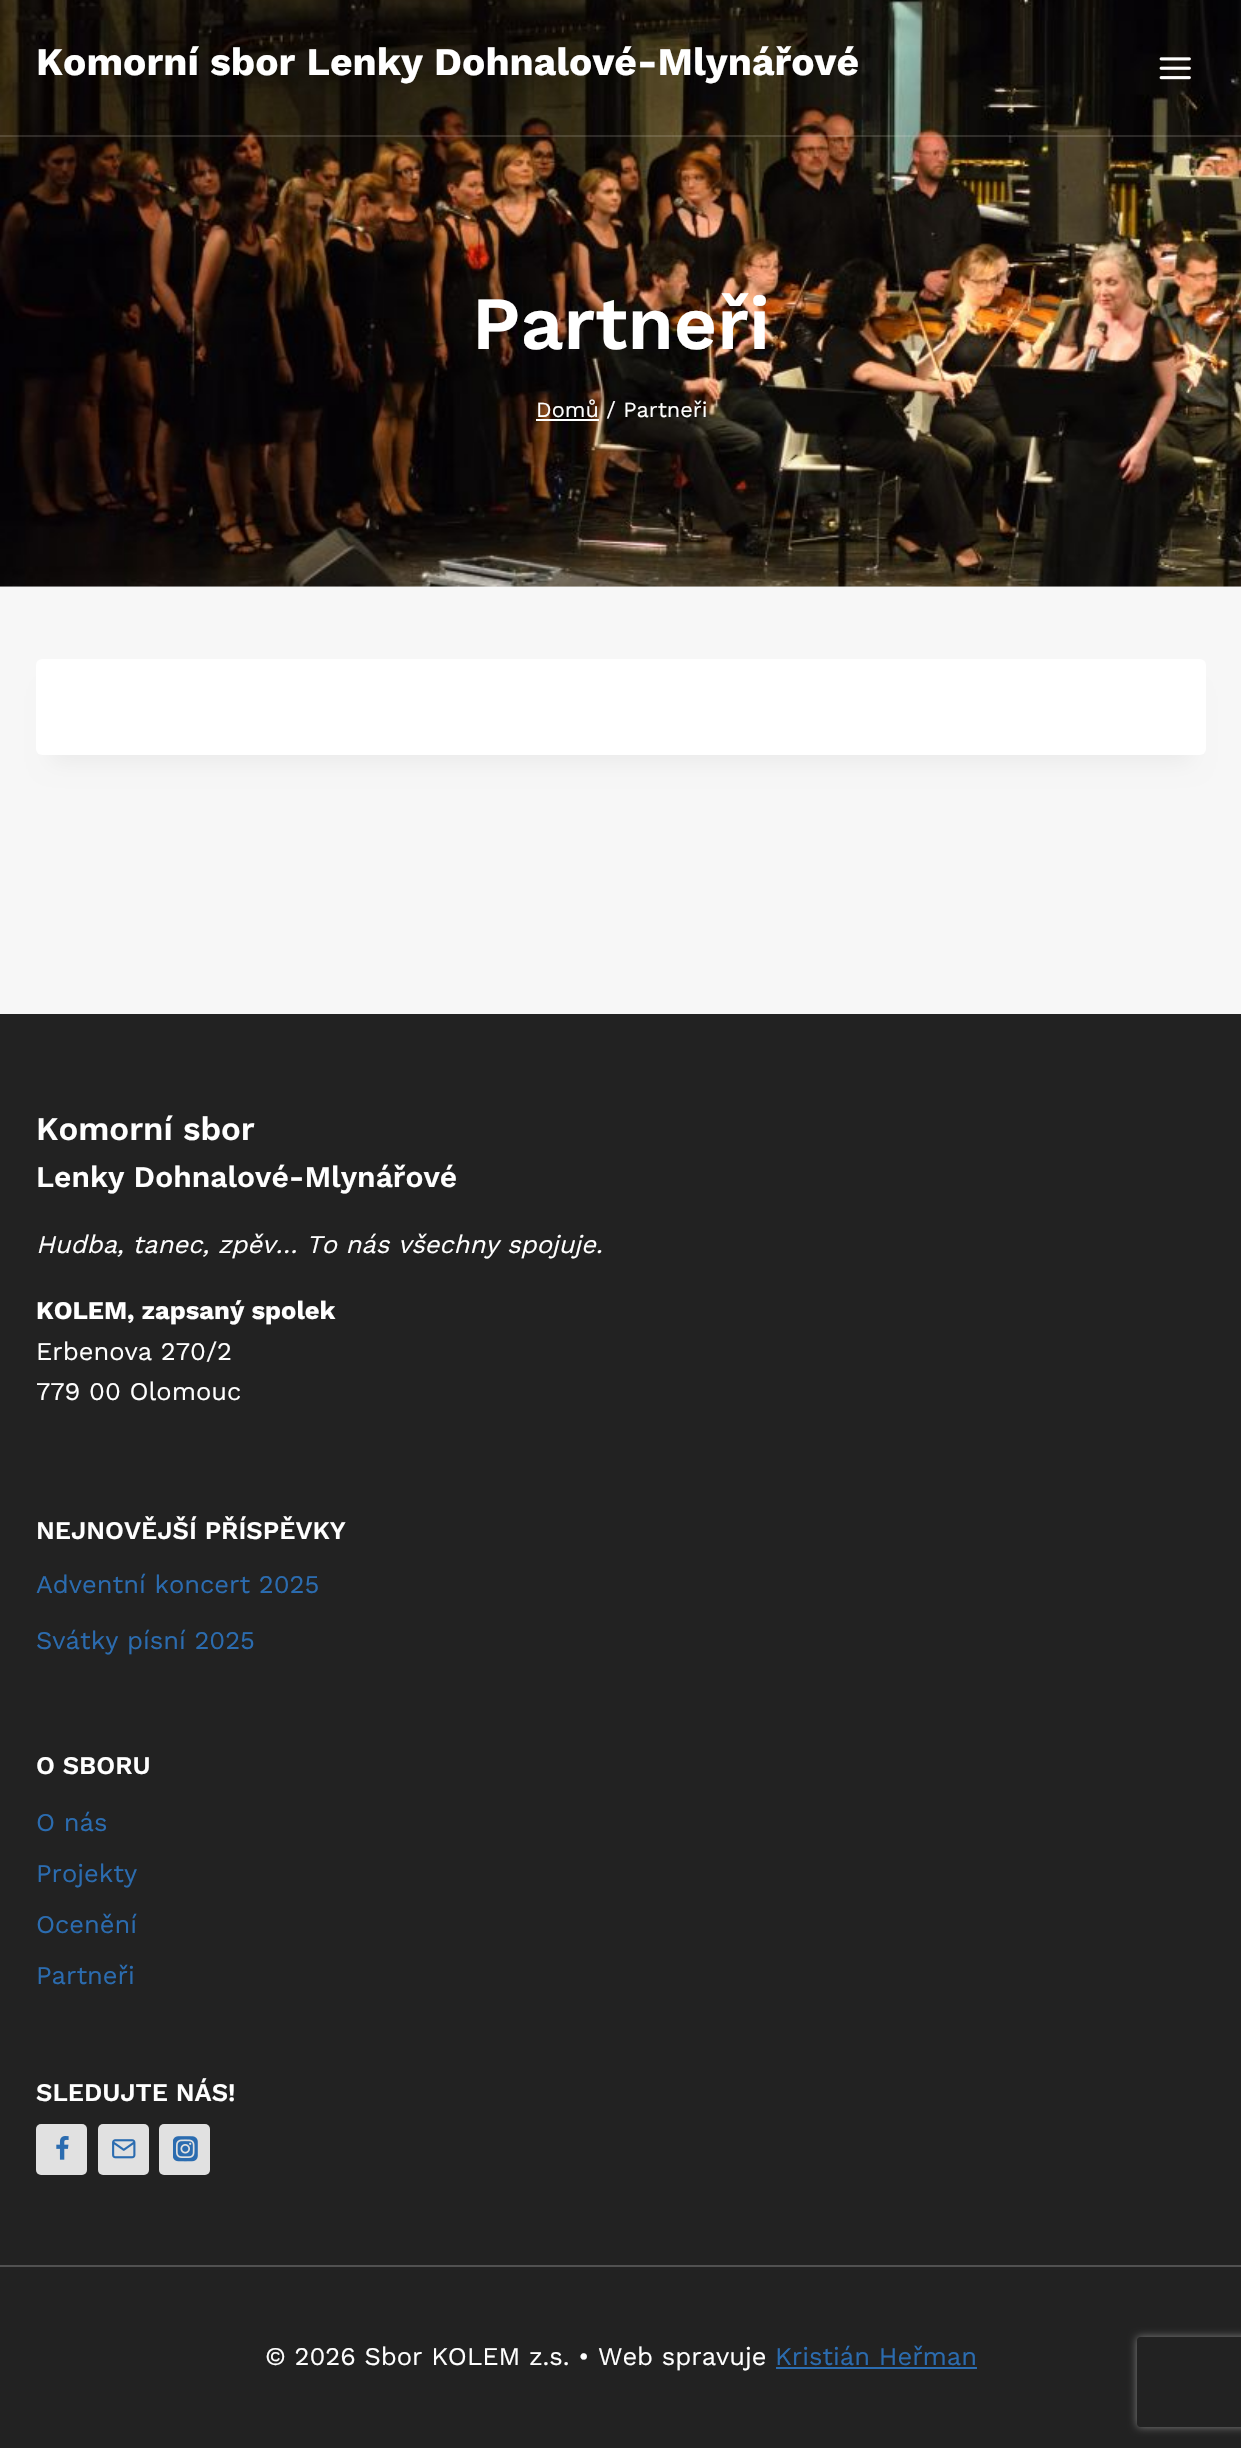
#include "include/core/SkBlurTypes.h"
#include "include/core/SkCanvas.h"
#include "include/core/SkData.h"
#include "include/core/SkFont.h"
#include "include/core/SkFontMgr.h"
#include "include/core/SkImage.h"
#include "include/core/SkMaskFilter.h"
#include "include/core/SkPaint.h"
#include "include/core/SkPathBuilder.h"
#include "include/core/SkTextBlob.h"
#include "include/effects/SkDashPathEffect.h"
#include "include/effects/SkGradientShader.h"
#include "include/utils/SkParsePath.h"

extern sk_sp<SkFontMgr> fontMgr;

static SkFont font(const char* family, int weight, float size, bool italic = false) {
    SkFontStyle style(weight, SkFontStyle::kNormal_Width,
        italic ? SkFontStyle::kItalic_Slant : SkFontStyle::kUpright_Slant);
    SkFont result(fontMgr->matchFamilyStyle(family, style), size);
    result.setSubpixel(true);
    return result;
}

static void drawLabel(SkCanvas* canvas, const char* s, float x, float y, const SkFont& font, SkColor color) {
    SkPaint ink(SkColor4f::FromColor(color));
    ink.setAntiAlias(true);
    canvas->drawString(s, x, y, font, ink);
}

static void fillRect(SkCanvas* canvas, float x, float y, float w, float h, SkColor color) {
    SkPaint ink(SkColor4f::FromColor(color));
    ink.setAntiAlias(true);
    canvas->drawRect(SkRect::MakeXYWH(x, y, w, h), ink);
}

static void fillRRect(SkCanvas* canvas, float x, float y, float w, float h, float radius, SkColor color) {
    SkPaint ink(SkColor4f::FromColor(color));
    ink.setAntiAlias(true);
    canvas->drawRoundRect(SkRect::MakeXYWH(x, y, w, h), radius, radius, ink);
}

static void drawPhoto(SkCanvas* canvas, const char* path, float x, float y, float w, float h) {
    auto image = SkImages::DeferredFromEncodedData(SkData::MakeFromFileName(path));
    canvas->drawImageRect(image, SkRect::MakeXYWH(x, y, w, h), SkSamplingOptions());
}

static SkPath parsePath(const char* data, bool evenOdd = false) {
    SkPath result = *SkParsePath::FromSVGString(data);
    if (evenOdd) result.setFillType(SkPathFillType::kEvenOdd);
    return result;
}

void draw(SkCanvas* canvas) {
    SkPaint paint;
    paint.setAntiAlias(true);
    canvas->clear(0xFFF7F7F7);
    fillRect(canvas, 0, 586, 1241, 1, 0xFFE1E1E1);
    drawPhoto(canvas, "assets/img2.png", 0, 0, 1241, 587);
    fillRect(canvas, 0, 135, 1241, 2, 0x26F7F3EE);
    SkFont font1 = font("Work Sans", 700, 39);
    drawLabel(canvas, "Komorní sbor Lenky Dohnalové-Mlynářové", 36, 75, font1, 0xFFFFFFFF);
    drawPhoto(canvas, "assets/img1.png", 1159, 57, 32, 23);
    SkFont font2 = font("Work Sans", 600, 75);
    drawLabel(canvas, "Partneři", 472, 349, font2, 0xFFFFFFFF);
    SkFont font3 = font("Work Sans", 400, 21.75f);
    drawLabel(canvas, "Domů / Partneři", 536, 417, font3, 0xFFFFFFFF);
    fillRect(canvas, 536, 419, 63, 2, 0xFFFFFFFF);
    paint.setColor(0x0D000000);
    paint.setMaskFilter(SkMaskFilter::MakeBlur(kNormal_SkBlurStyle, 11));
    canvas->drawRect(SkRect::MakeXYWH(51, 696, 1140, 66), paint);
    paint.setMaskFilter(nullptr);
    fillRRect(canvas, 36, 659, 1170, 96, 6, 0xFFFFFFFF);
    fillRect(canvas, 0, 1014, 1241, 1251, 0xFF222222);
    fillRect(canvas, 0, 2265, 1241, 2, 0xFF515151);
    SkFont font4 = font("Work Sans", 600, 33);
    drawLabel(canvas, "Komorní sbor", 36, 1140, font4, 0xFFFFFFFF);
    SkFont font5 = font("Work Sans", 600, 30);
    drawLabel(canvas, "Lenky Dohnalové-Mlynářové", 36, 1187, font5, 0xFFFFFFFF);
    SkFont font6 = font("Work Sans", 400, 25.5f, true);
    drawLabel(canvas, "Hudba, tanec, zpěv… To nás všechny spojuje.", 36, 1253, font6, 0xFFFFFFFF);
    SkFont font7 = font("Work Sans", 700, 25.5f);
    drawLabel(canvas, "KOLEM, zapsaný spolek", 36, 1319, font7, 0xFFFFFFFF);
    SkFont font8 = font("Work Sans", 400, 25.5f);
    drawLabel(canvas, "Erbenova 270/2", 36, 1360, font8, 0xFFFFFFFF);
    drawLabel(canvas, "779 00 Olomouc", 36, 1400, font8, 0xFFFFFFFF);
    SkFont font9 = font("Work Sans", 600, 25.5f);
    drawLabel(canvas, "NEJNOVĚJŠÍ PŘÍSPĚVKY", 36, 1539, font9, 0xFFFFFFFF);
    drawLabel(canvas, "Adventní koncert 2025", 36, 1593, font8, 0xFF2B6CB0);
    drawLabel(canvas, "Svátky písní 2025", 36, 1649, font8, 0xFF2B6CB0);
    drawLabel(canvas, "O SBORU", 36, 1774, font9, 0xFFFFFFFF);
    drawLabel(canvas, "O nás", 36, 1831, font8, 0xFF2B6CB0);
    drawLabel(canvas, "Projekty", 36, 1882, font8, 0xFF2B6CB0);
    drawLabel(canvas, "Ocenění", 36, 1933, font8, 0xFF2B6CB0);
    drawLabel(canvas, "Partneři", 36, 1984, font8, 0xFF2B6CB0);
    drawLabel(canvas, "SLEDUJTE NÁS!", 36, 2101, font9, 0xFFFFFFFF);
    fillRRect(canvas, 36, 2124, 51, 51, 5, 0xFFE1E1E1);
    drawPhoto(canvas, "assets/img3.png", 56, 2136, 13, 24);
    fillRRect(canvas, 98, 2124, 51, 51, 5, 0xFFE1E1E1);
    drawPhoto(canvas, "assets/img4.png", 112, 2139, 24, 20);
    fillRRect(canvas, 159, 2124, 51, 51, 5, 0xFFE1E1E1);
    drawPhoto(canvas, "assets/img5.png", 173, 2136, 25, 26);
    fillRect(canvas, 0, 2267, 1241, 181, 0xFF222222);
    drawLabel(canvas, "© 2026 Sbor KOLEM z.s. • Web spravuje", 265, 2365, font8, 0xFFFFFFFF);
    drawLabel(canvas, "Kristián Heřman", 775, 2365, font8, 0xFF2B6CB0);
    fillRect(canvas, 776, 2367, 201, 2, 0xFF2B6CB0);
    canvas->save();
    canvas->clipPath(parsePath("M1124 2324H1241V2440H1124ZM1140 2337H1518C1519.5 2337 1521 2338.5 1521 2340V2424C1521 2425.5 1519.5 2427 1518 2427H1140C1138.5 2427 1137 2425.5 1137 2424V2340C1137 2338.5 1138.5 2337 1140 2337Z", true), true);
    paint.setColor(0xFF808080);
    paint.setMaskFilter(SkMaskFilter::MakeBlur(kNormal_SkBlurStyle, 4));
    canvas->drawRoundRect(SkRect::MakeXYWH(1137, 2337, 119, 90), 3, 3, paint);
    paint.setMaskFilter(nullptr);
    canvas->restore();
}
